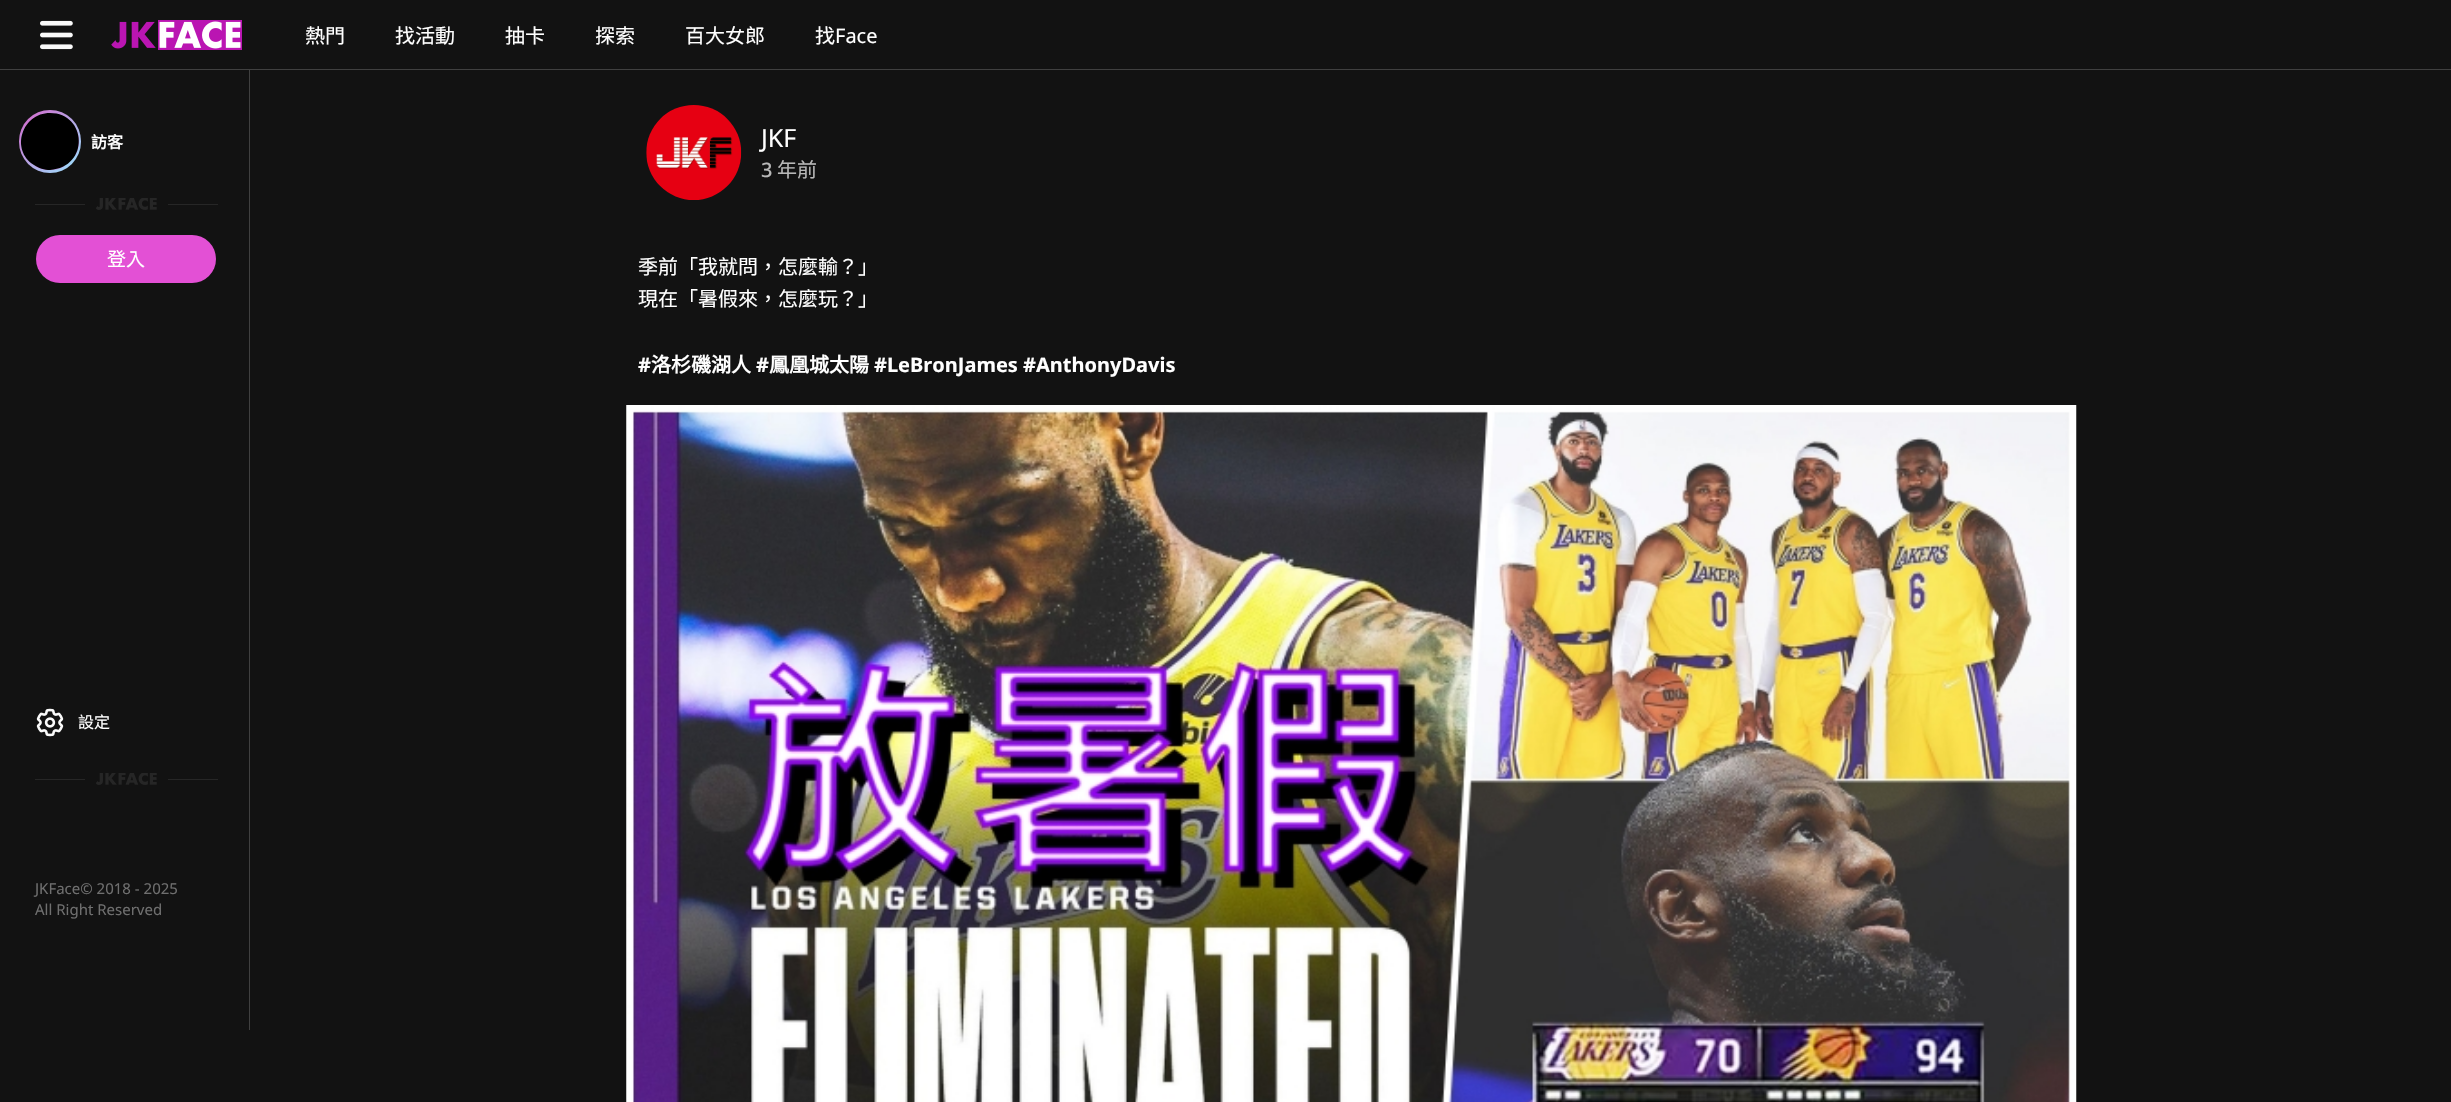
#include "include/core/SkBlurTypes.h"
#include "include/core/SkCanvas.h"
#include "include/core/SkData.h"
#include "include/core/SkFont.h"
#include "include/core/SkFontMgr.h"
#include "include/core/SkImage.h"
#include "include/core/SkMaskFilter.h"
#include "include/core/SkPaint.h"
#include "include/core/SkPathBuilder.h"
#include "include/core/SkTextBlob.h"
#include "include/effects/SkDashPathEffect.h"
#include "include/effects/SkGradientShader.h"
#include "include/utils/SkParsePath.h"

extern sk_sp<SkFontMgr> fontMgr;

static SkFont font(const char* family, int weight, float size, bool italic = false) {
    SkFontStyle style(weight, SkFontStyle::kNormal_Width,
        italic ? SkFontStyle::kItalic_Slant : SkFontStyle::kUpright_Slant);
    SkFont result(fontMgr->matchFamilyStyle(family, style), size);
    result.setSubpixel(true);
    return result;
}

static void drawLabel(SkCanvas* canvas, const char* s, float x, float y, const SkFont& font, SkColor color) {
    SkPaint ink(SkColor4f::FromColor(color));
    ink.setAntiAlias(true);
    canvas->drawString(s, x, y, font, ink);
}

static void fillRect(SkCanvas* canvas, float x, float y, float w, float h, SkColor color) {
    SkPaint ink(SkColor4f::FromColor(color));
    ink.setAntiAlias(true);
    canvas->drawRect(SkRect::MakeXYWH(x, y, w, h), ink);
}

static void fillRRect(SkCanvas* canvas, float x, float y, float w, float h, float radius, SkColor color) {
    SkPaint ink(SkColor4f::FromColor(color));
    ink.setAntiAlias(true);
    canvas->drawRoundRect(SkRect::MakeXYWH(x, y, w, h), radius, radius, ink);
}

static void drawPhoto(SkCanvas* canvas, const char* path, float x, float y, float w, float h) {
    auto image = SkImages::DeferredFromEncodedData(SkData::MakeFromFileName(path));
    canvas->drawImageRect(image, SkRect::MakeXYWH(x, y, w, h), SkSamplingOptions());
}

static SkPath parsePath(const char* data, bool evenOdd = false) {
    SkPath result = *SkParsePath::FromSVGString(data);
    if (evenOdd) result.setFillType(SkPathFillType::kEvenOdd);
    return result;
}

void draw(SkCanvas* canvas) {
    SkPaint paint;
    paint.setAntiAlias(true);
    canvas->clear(0xFF121212);
    fillRect(canvas, 0, 69, 2451, 1, 0xFF404040);
    drawPhoto(canvas, "assets/img1.png", 40, 20, 33, 30);
    drawPhoto(canvas, "assets/img2.png", 111, 20, 131, 30);
    SkFont font1 = font("Noto Sans CJK TC", 400, 20);
    drawLabel(canvas, "熱門", 305, 43, font1, 0xFFFFFFFF);
    drawLabel(canvas, "找活動", 395, 43, font1, 0xFFFFFFFF);
    drawLabel(canvas, "抽卡", 505, 43, font1, 0xFFFFFFFF);
    drawLabel(canvas, "探索", 595, 43, font1, 0xFFFFFFFF);
    drawLabel(canvas, "百大女郎", 685, 43, font1, 0xFFFFFFFF);
    drawLabel(canvas, "找", 815, 43, font1, 0xFFFFFFFF);
    SkFont font2 = font("Noto Sans", 400, 20);
    drawLabel(canvas, "Face", 835, 43, font2, 0xFFFFFFFF);
    fillRect(canvas, 249, 70, 1, 960, 0xFF404040);
    {
        const SkColor colors[] = {0xFFD663CA, 0xFF97E6FF};
        const float stops[] = {0, 1};
        const SkPoint ends[] = {{19, 110}, {81, 173}};
        paint.setShader(SkGradientShader::MakeLinear(ends, colors, stops, 2, SkTileMode::kClamp));
        paint.setAlpha(255);
    }
    canvas->drawRoundRect(SkRect::MakeXYWH(19, 110, 62, 63), 31, 31, paint);
    canvas->save();
    canvas->clipPath(parsePath("M49.5 113H50.5C66 113 79 126 79 141.5C79 157 66 170 50.5 170H49.5C34 170 21 157 21 141.5C21 126 34 113 49.5 113Z"), true);
    {
        const SkColor colors[] = {0xFFD663CA, 0xFF97E6FF};
        const float stops[] = {0, 1};
        const SkPoint ends[] = {{-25, 116}, {25, 166}};
        paint.setShader(SkGradientShader::MakeLinear(ends, colors, stops, 2, SkTileMode::kClamp));
        paint.setAlpha(255);
    }
    canvas->drawRect(SkRect::MakeXYWH(21, 127, 4, 29), paint);
    {
        const SkColor colors[] = {0xFFD663CA, 0xFF97E6FF};
        const float stops[] = {0, 1};
        const SkPoint ends[] = {{25, 116}, {75, 166}};
        paint.setShader(SkGradientShader::MakeLinear(ends, colors, stops, 2, SkTileMode::kClamp));
        paint.setAlpha(255);
    }
    canvas->drawRect(SkRect::MakeXYWH(25, 116, 50, 50), paint);
    {
        const SkColor colors[] = {0xFFD663CA, 0xFF97E6FF};
        const float stops[] = {0, 1};
        const SkPoint ends[] = {{75, 116}, {125, 166}};
        paint.setShader(SkGradientShader::MakeLinear(ends, colors, stops, 2, SkTileMode::kClamp));
        paint.setAlpha(255);
    }
    canvas->drawRect(SkRect::MakeXYWH(75, 127, 4, 29), paint);
    {
        const SkColor colors[] = {0xFFD663CA, 0xFF97E6FF};
        const float stops[] = {0, 1};
        const SkPoint ends[] = {{25, 166}, {75, 216}};
        paint.setShader(SkGradientShader::MakeLinear(ends, colors, stops, 2, SkTileMode::kClamp));
        paint.setAlpha(255);
    }
    canvas->drawRect(SkRect::MakeXYWH(35, 166, 30, 4), paint);
    canvas->restore();
    paint.setShader(nullptr);
    paint.setColor(0xFF000000);
    canvas->drawPath(parsePath("M50 113C87 113 90 167 50 170C45 170 38 168 34 165C10 150 22 113 50 113Z"), paint);
    SkFont font3 = font("Noto Sans CJK TC", 700, 16);
    drawLabel(canvas, "訪客", 91, 148, font3, 0xFFFFFFFF);
    fillRect(canvas, 35, 204, 50, 1, 0xFF262626);
    drawPhoto(canvas, "assets/img3.png", 96, 198, 61, 12);
    fillRect(canvas, 168, 204, 50, 1, 0xFF262626);
    fillRRect(canvas, 36, 235, 180, 48, 24, 0xFFE350D5);
    SkFont font4 = font("Noto Sans CJK TC", 400, 19);
    drawLabel(canvas, "登入", 107, 266, font4, 0xFFFFFFFF);
    drawPhoto(canvas, "assets/img4.png", 36, 708, 28, 29);
    SkFont font5 = font("Noto Sans CJK TC", 400, 16);
    drawLabel(canvas, "設定", 78, 728, font5, 0xFFFFFFFF);
    fillRect(canvas, 35, 779, 50, 1, 0xFF262626);
    drawPhoto(canvas, "assets/img3.png", 96, 773, 61, 12);
    fillRect(canvas, 168, 779, 50, 1, 0xFF262626);
    SkFont font6 = font("Noto Sans", 400, 15);
    drawLabel(canvas, "JKFace© 2018 - 2025", 35, 894, font6, 0xFF6F6F6F);
    drawLabel(canvas, "All Right Reserved", 35, 915, font6, 0xFF6F6F6F);
    drawPhoto(canvas, "assets/img5.png", 646, 105, 96, 95);
    SkFont font7 = font("Noto Sans", 400, 25);
    drawLabel(canvas, "JKF", 761, 147, font7, 0xFFFFFFFF);
    SkFont font8 = font("Noto Sans", 500, 20);
    drawLabel(canvas, "3", 761, 177, font8, 0xFFB8B8B8);
    drawLabel(canvas, "年前", 777, 177, font1, 0xFFB8B8B8);
    drawLabel(canvas, "季前「我就問，怎麼輸？」", 638, 274, font1, 0xFFFFFFFF);
    drawLabel(canvas, "現在「暑假來，怎麼玩？」", 638, 306, font1, 0xFFFFFFFF);
    SkFont font9 = font("Noto Sans", 700, 20);
    drawLabel(canvas, "#", 638, 372, font9, 0xFFFFFFFF);
    SkFont font10 = font("Noto Sans CJK TC", 700, 20);
    drawLabel(canvas, "洛杉磯湖人", 651, 372, font10, 0xFFFFFFFF);
    drawLabel(canvas, "#", 756, 372, font9, 0xFFFFFFFF);
    drawLabel(canvas, "鳳凰城太陽", 769, 372, font10, 0xFFFFFFFF);
    drawLabel(canvas, "#LeBronJames #AnthonyDavis", 874, 372, font9, 0xFFFFFFFF);
    drawPhoto(canvas, "assets/img6.png", 626, 405, 1451, 697);
}
